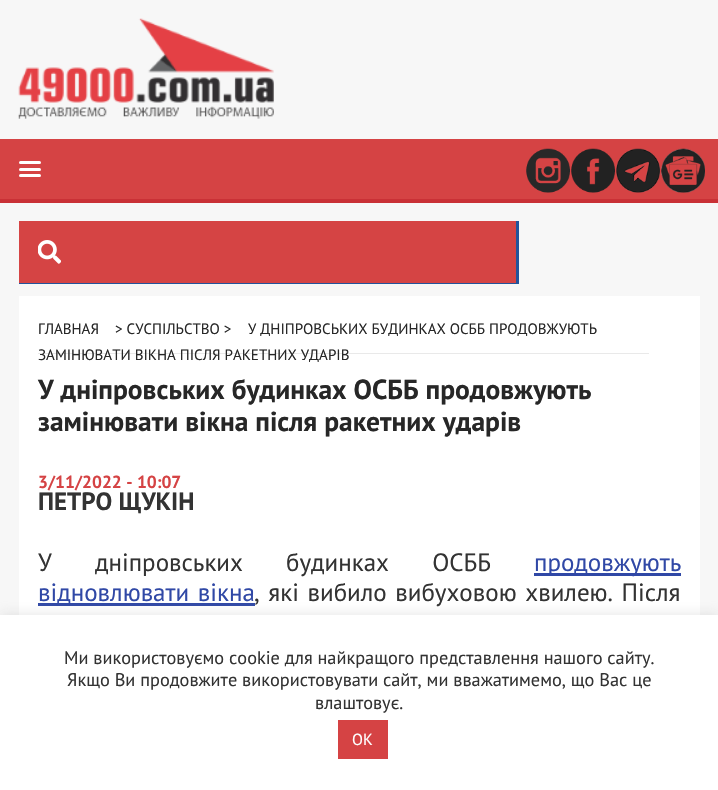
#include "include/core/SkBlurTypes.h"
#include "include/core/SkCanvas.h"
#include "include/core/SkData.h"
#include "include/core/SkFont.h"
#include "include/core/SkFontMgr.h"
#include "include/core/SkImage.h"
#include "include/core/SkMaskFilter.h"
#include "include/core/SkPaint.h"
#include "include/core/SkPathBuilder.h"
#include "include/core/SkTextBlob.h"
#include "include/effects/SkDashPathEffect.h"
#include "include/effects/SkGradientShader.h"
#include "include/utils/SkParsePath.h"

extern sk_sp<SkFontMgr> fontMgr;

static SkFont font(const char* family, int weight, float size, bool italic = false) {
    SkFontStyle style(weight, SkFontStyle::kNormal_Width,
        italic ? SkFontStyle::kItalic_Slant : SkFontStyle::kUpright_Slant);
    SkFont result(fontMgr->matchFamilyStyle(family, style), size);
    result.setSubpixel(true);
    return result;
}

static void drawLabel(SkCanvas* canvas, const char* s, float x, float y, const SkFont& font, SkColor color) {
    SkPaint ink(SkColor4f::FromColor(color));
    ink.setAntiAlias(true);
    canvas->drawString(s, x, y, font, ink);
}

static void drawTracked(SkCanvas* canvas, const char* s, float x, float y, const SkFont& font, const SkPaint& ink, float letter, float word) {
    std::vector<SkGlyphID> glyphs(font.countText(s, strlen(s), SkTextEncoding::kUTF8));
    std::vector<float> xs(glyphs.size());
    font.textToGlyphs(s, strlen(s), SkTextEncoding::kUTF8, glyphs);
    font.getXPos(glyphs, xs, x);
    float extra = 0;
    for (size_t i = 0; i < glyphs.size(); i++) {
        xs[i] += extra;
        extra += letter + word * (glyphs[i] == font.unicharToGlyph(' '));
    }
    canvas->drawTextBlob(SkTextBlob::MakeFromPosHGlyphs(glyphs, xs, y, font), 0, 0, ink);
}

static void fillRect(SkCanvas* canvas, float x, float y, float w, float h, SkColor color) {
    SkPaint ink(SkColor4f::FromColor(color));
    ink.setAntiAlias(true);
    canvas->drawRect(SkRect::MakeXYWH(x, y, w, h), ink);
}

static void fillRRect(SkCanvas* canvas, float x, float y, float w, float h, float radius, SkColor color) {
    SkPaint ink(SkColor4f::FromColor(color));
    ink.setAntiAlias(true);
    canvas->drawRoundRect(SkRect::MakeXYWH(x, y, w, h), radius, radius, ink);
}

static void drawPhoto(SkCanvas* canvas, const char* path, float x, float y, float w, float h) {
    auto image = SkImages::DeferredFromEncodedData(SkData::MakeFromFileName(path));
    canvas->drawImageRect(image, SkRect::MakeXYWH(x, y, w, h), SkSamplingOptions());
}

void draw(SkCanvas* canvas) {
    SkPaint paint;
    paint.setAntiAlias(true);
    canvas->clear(0xFFF7F7F7);
    drawPhoto(canvas, "assets/img1.png", 18, 18, 256, 101);
    fillRect(canvas, 0, 139, 718, 60, 0xFFD54344);
    fillRect(canvas, 0, 199, 718, 4, 0xFFC93136);
    fillRRect(canvas, 19, 161, 22, 3, 1.5f, 0xFFFFFFFF);
    fillRRect(canvas, 19, 168, 22, 3, 1.5f, 0xFFFFFFFF);
    fillRRect(canvas, 19, 174, 22, 3, 1.5f, 0xFFFFFFFF);
    drawPhoto(canvas, "assets/img2.png", 526, 148, 44, 45);
    drawPhoto(canvas, "assets/img3.png", 571, 148, 44, 45);
    drawPhoto(canvas, "assets/img4.png", 616, 148, 44, 45);
    drawPhoto(canvas, "assets/img5.png", 661, 148, 44, 45);
    fillRect(canvas, 19, 221, 500, 63, 0xFF22549B);
    fillRect(canvas, 19, 221, 497, 62, 0xFFD54444);
    drawPhoto(canvas, "assets/img6.png", 38, 240, 23, 24);
    fillRect(canvas, 19, 296, 681, 319, 0xFFFFFFFF);
    fillRect(canvas, 38, 353, 611, 1, 0xFFE9E9E9);
    SkFont font1 = font("PT Sans", 400, 15);
    drawLabel(canvas, "ГЛАВНАЯ", 38, 334, font1, 0xFF272727);
    drawLabel(canvas, "> СУСПІЛЬСТВО >", 115, 334, font1, 0xFF272727);
    drawLabel(canvas, "У ДНІПРОВСЬКИХ БУДИНКАХ ОСББ ПРОДОВЖУЮТЬ", 248, 334, font1, 0xFF272727);
    drawLabel(canvas, "ЗАМІНЮВАТИ ВІКНА ПІСЛЯ РАКЕТНИХ УДАРІВ", 38, 360, font1, 0xFF272727);
    SkFont font2 = font("PT Sans", 700, 27.5f);
    drawLabel(canvas, "У дніпровських будинках ОСББ продовжують", 38, 399, font2, 0xFF272727);
    drawLabel(canvas, "замінювати вікна після ракетних ударів", 38, 431, font2, 0xFF272727);
    SkFont font3 = font("PT Sans", 700, 17.5f);
    drawLabel(canvas, "3/11/2022 - 10:07", 38, 488, font3, 0xFFD54344);
    SkFont font4 = font("PT Sans", 700, 25);
    drawLabel(canvas, "ПЕТРО ЩУКІН", 38, 510, font4, 0xFF333333);
    SkFont font5 = font("PT Sans", 400, 25);
    paint.setColor(0xFF333333);
    drawTracked(canvas, "У дніпровських будинках ОСББ", 38, 571, font5, paint, 0, 36.5f);
    fillRect(canvas, 534, 573, 147, 3, 0xFF3048A6);
    drawLabel(canvas, "продовжують", 534, 571, font5, 0xFF3048A6);
    fillRect(canvas, 38, 603, 217, 3, 0xFF3048A6);
    paint.setColor(0xFF3048A6);
    drawTracked(canvas, "відновлювати вікна", 38, 601, font5, paint, 0, 2);
    paint.setColor(0xFF333333);
    drawTracked(canvas, ", які вибило вибуховою хвилею. Після", 254, 601, font5, paint, 0, 2);
    paint.setColor(0x4DACABAB);
    paint.setMaskFilter(SkMaskFilter::MakeBlur(kNormal_SkBlurStyle, 6));
    canvas->drawRect(SkRect::MakeXYWH(0, 614, 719, 175), paint);
    paint.setMaskFilter(nullptr);
    fillRect(canvas, 0, 615, 718, 175, 0xFFFFFFFF);
    SkFont font6 = font("PT Sans", 400, 18.3f);
    drawLabel(canvas, "Ми використовуємо cookie для найкращого представлення нашого сайту.", 64, 664, font6, 0xFF333333);
    drawLabel(canvas, "Якщо Ви продовжите використовувати сайт, ми вважатимемо, що Вас це", 67, 686, font6, 0xFF333333);
    drawLabel(canvas, "влаштовує.", 315, 709, font6, 0xFF333333);
    fillRect(canvas, 338, 720, 50, 39, 0xFFD54344);
    SkFont font7 = font("PT Sans", 400, 16);
    drawLabel(canvas, "OK", 352, 745, font7, 0xFFFFFFFF);
}
